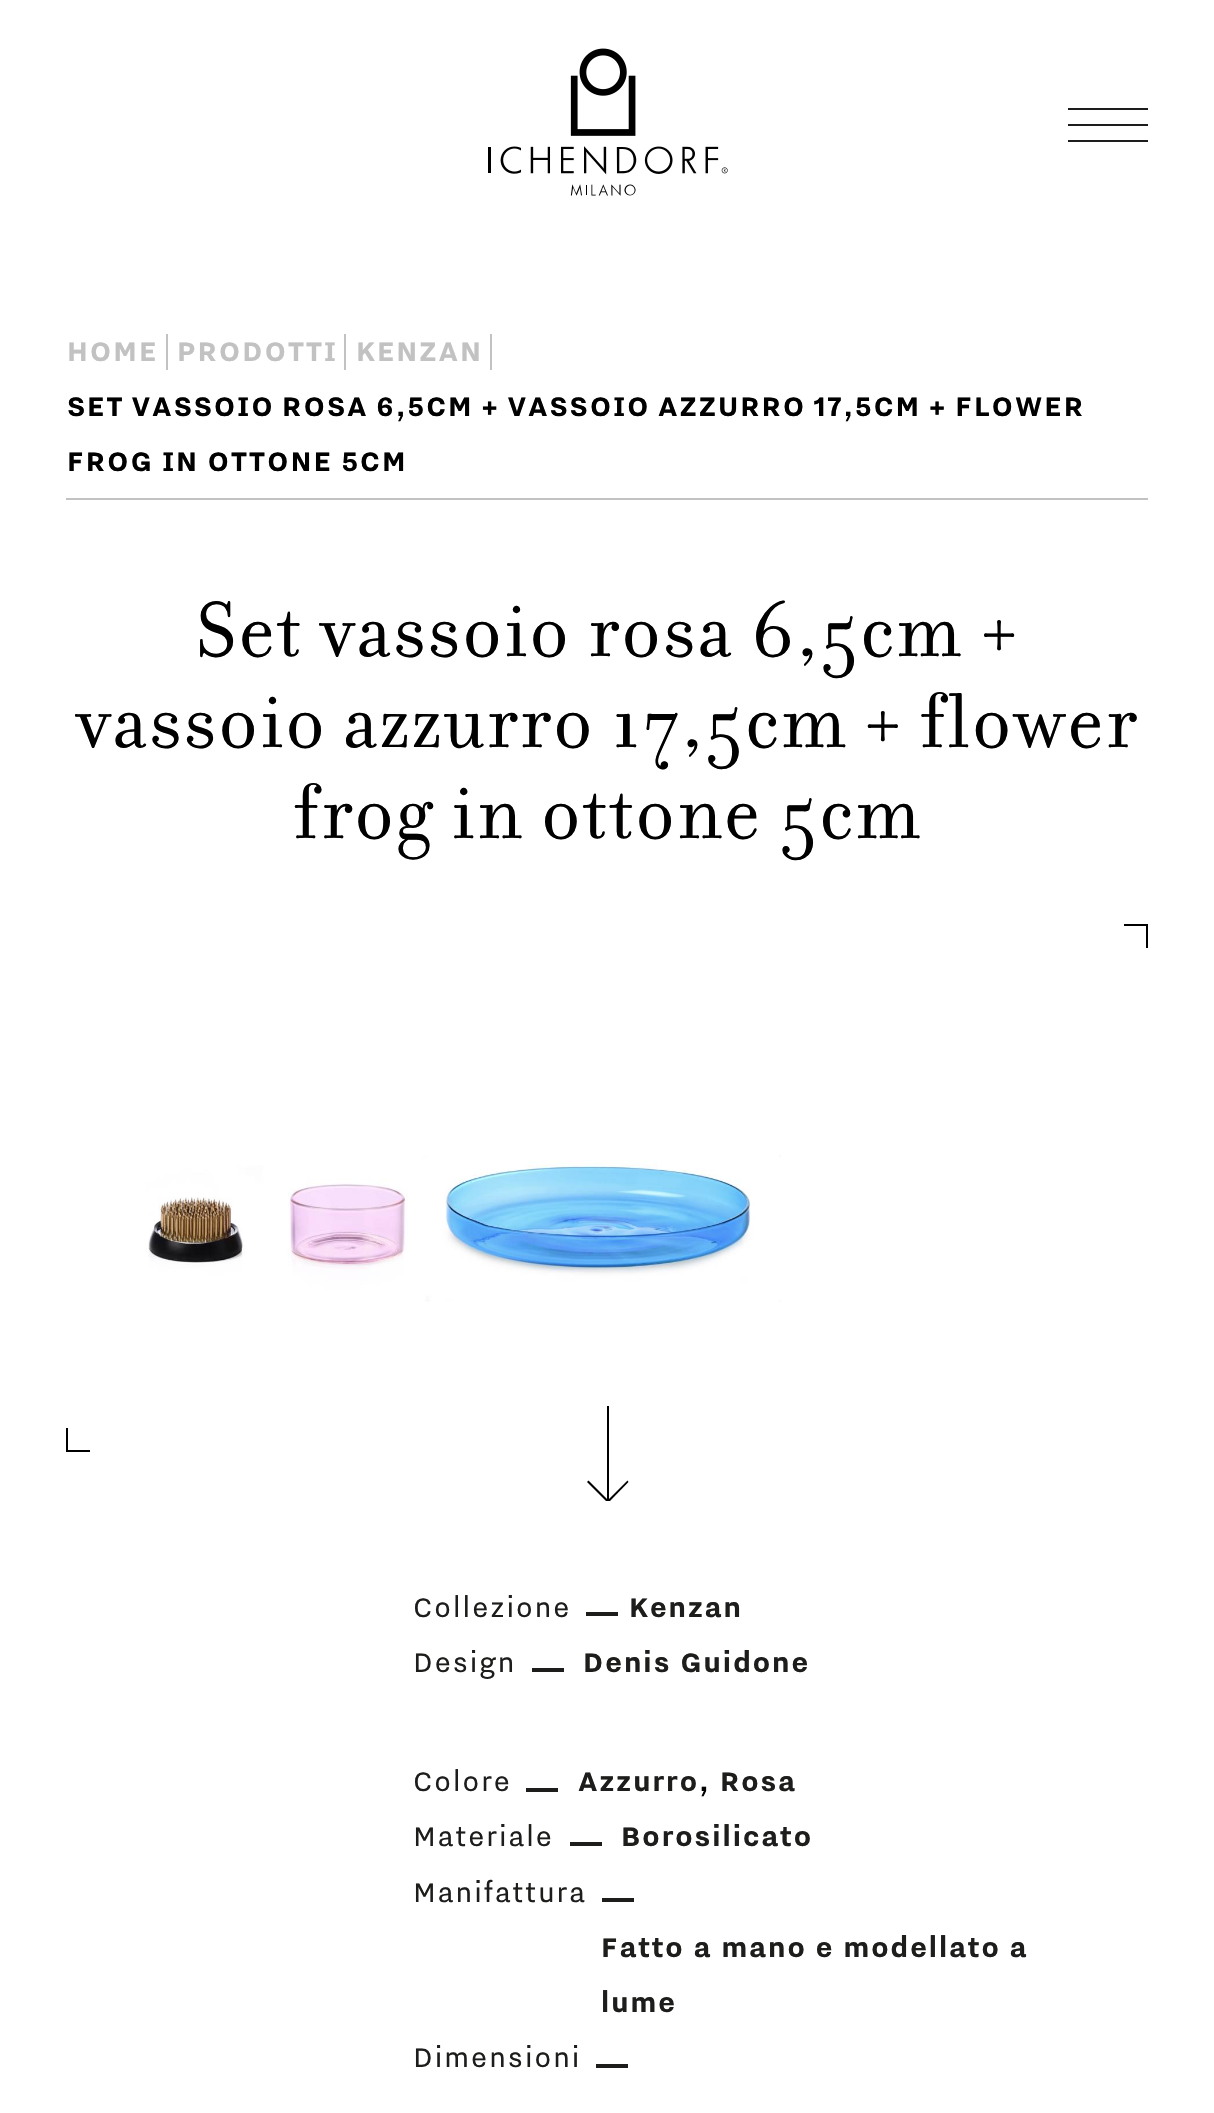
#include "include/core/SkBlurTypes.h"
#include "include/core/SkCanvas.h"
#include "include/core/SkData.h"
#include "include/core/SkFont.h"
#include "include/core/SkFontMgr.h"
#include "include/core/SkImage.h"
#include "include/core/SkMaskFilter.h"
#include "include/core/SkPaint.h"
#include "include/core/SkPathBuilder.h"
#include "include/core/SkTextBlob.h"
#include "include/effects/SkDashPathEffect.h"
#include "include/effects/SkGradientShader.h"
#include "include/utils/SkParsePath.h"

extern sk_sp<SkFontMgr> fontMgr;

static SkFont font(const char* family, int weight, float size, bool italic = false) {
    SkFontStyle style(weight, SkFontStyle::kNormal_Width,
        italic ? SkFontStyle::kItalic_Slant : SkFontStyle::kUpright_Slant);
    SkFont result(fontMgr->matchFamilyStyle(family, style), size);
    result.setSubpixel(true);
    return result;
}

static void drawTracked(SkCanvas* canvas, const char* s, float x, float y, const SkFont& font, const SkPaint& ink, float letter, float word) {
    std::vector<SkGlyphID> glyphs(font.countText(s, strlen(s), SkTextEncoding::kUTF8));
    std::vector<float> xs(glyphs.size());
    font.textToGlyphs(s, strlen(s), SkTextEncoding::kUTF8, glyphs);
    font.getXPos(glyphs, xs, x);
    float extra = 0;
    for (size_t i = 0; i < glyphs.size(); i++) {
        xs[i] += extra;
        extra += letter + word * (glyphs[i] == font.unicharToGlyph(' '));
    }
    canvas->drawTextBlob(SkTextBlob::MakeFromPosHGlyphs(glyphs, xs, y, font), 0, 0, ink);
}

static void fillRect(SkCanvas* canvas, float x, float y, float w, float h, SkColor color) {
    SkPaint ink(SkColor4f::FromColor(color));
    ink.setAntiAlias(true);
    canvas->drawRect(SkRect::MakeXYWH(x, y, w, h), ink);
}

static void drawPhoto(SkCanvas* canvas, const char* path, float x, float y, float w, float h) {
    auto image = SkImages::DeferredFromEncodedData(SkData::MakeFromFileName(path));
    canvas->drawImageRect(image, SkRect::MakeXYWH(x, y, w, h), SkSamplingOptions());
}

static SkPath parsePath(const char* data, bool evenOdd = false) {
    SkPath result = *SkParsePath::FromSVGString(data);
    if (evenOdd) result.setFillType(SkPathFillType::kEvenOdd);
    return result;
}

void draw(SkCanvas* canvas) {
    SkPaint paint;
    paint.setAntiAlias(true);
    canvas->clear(0xFFFFFFFF);
    drawPhoto(canvas, "assets/img1.png", 488, 48, 240, 148);
    fillRect(canvas, 1068, 108, 80, 2, 0xFF1D1E1B);
    fillRect(canvas, 1068, 124, 80, 2, 0xFF1D1E1B);
    fillRect(canvas, 1068, 140, 80, 2, 0xFF1D1E1B);
    fillRect(canvas, 66, 498, 1082, 2, 0xFFC2C2C2);
    SkFont font1 = font("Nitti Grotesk", 700, 33.1f);
    paint.setColor(0xFFC2C2C2);
    drawTracked(canvas, "HOME", 67, 361, font1, paint, 2, 0);
    fillRect(canvas, 166, 334, 2, 36, 0xFFC2C2C2);
    drawTracked(canvas, "PRODOTTI", 177, 361, font1, paint, 2, 0);
    fillRect(canvas, 344, 334, 2, 36, 0xFFC2C2C2);
    drawTracked(canvas, "KENZAN", 356, 361, font1, paint, 2, 0);
    fillRect(canvas, 490, 334, 2, 36, 0xFFC2C2C2);
    paint.setColor(0xFF000000);
    drawTracked(canvas, "SET VASSOIO ROSA 6,5CM + VASSOIO AZZURRO 17,5CM + FLOWER", 67, 416, font1, paint, 2, -2);
    drawTracked(canvas, "FROG IN OTTONE 5CM", 67, 471, font1, paint, 2, -1);
    SkFont font2 = font("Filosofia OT", 400, 83.75f);
    drawTracked(canvas, "Set vassoio rosa 6,5cm +", 196, 656, font2, paint, 1.7f, 0);
    drawTracked(canvas, "vassoio azzurro 17,5cm + flower", 76, 747, font2, paint, 1.7f, -1);
    drawTracked(canvas, "frog in ottone 5cm", 293, 838, font2, paint, 1.7f, 0.5f);
    fillRect(canvas, 1124, 924, 24, 2, 0xFF000000);
    fillRect(canvas, 1146, 924, 2, 24, 0xFF000000);
    drawPhoto(canvas, "assets/img2.png", 146, 1155, 635, 147);
    fillRect(canvas, 66, 1450, 24, 2, 0xFF000000);
    fillRect(canvas, 66, 1428, 2, 24, 0xFF000000);
    fillRect(canvas, 607, 1406, 2, 95, 0xFF000000);
    canvas->drawPath(parsePath("M610 1501L628.5 1482L627.5 1480.5L607 1501Z"), paint);
    canvas->drawPath(parsePath("M587 1482L606 1501H608L608.5 1500.5L588.5 1480.5Z"), paint);
    SkFont font3 = font("Nitti Grotesk", 400, 33.1f);
    paint.setColor(0xFF1D1E1B);
    drawTracked(canvas, "Collezione", 413, 1617, font3, paint, 2, 0);
    fillRect(canvas, 586, 1612, 32, 4, 0xFF1D1E1B);
    drawTracked(canvas, "Kenzan", 629, 1617, font1, paint, 2, 0);
    drawTracked(canvas, "Design", 413, 1672, font3, paint, 2, 0);
    fillRect(canvas, 532, 1668, 32, 4, 0xFF1D1E1B);
    drawTracked(canvas, "Denis Guidone", 583, 1672, font1, paint, 2, -0.5f);
    drawTracked(canvas, "Colore", 413, 1791, font3, paint, 2, 0);
    fillRect(canvas, 526, 1788, 32, 4, 0xFF1D1E1B);
    drawTracked(canvas, "Azzurro", 578, 1791, font1, paint, 2, 0);
    paint.setColor(0xFF000000);
    drawTracked(canvas, ",", 699, 1791, font1, paint, 2, 0);
    paint.setColor(0xFF1D1E1B);
    drawTracked(canvas, "Rosa", 720, 1791, font1, paint, 2, 0);
    drawTracked(canvas, "Materiale", 413, 1846, font3, paint, 2, 0);
    fillRect(canvas, 570, 1842, 32, 4, 0xFF1D1E1B);
    drawTracked(canvas, "Borosilicato", 621, 1846, font1, paint, 2, 0);
    drawTracked(canvas, "Manifattura", 413, 1902, font3, paint, 2, 0);
    fillRect(canvas, 602, 1898, 32, 4, 0xFF1D1E1B);
    drawTracked(canvas, "Fatto a mano e modellato a", 601, 1957, font1, paint, 2, -0.5f);
    drawTracked(canvas, "lume", 601, 2012, font1, paint, 2, 0);
    drawTracked(canvas, "Dimensioni", 413, 2067, font3, paint, 2, 0);
    fillRect(canvas, 596, 2064, 32, 4, 0xFF1D1E1B);
}
